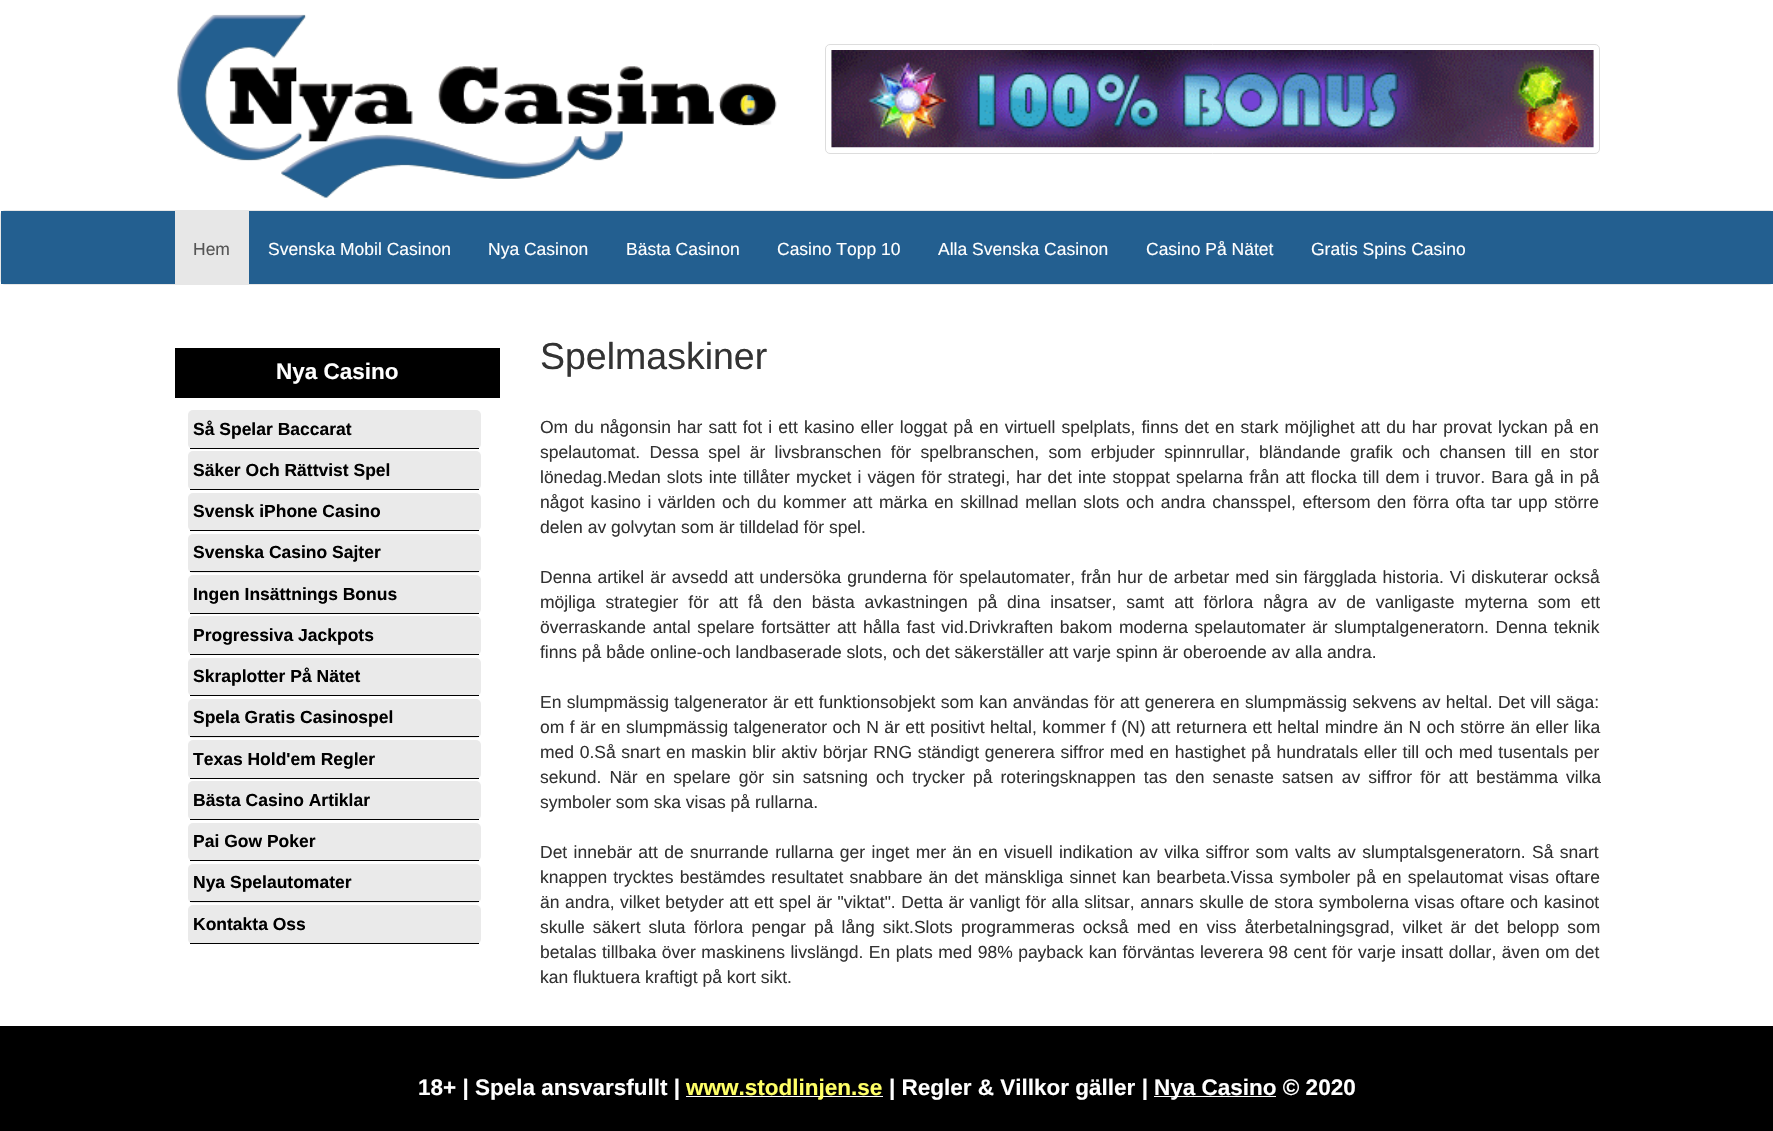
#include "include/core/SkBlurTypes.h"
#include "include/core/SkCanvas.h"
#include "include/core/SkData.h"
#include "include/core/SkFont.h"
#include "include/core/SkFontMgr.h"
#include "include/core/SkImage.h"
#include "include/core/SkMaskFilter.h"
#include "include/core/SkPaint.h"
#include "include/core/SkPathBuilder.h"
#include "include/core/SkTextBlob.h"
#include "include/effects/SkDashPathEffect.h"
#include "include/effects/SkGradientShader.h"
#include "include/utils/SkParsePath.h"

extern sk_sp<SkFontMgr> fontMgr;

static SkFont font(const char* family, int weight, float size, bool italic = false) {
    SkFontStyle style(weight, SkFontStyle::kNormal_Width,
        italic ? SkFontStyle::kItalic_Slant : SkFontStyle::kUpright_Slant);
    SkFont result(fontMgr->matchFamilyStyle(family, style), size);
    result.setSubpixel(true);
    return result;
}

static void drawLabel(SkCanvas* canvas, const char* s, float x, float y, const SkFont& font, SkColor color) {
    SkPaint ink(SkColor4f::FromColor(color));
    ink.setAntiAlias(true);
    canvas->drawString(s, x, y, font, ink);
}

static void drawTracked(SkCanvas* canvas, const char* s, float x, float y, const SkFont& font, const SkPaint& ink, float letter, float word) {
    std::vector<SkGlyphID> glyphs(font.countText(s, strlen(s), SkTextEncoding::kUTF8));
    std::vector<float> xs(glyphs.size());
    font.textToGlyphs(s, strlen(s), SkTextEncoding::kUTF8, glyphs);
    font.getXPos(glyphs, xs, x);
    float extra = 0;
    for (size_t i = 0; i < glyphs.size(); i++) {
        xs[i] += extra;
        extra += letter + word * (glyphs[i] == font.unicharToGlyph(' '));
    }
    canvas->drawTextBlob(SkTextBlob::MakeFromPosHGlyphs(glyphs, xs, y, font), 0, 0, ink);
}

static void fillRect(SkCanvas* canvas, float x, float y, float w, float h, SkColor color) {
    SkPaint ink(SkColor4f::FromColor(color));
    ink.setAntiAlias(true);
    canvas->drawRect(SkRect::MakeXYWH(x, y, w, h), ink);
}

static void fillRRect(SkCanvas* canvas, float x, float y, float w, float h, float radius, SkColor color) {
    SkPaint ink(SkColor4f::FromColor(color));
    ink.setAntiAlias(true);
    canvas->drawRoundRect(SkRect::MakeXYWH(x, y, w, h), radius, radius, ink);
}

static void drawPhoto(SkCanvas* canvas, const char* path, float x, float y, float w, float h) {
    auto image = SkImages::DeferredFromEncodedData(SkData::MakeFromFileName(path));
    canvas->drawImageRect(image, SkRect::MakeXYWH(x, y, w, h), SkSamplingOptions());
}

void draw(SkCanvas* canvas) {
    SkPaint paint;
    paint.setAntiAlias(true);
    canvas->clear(0xFFFFFFFF);
    drawPhoto(canvas, "assets/img1.png", 177, 14, 600, 184);
    paint.setStroke(true);
    paint.setStrokeWidth(1);
    paint.setColor(0xFFDDDDDD);
    canvas->drawRoundRect(SkRect::MakeXYWH(825.5f, 44.5f, 774, 109), 4.5f, 4.5f, paint);
    drawPhoto(canvas, "assets/img2.png", 831, 50, 763, 98);
    paint.setColor(0xFFE7E7E7);
    canvas->drawRoundRect(SkRect::MakeXYWH(0.5f, 210.5f, 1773, 74), 4.5f, 4.5f, paint);
    fillRect(canvas, 1, 211, 1772, 73, 0xFF235F90);
    fillRect(canvas, 175, 211, 74, 73, 0xFFE7E7E7);
    SkFont font1 = font("Liberation Sans", 400, 17.5f);
    drawLabel(canvas, "Hem", 193, 255, font1, 0xFF555555);
    drawLabel(canvas, "Svenska Mobil Casinon", 268, 255, font1, 0xFFFFFFFF);
    drawLabel(canvas, "Nya Casinon", 488, 255, font1, 0xFFFFFFFF);
    drawLabel(canvas, "Bästa Casinon", 626, 255, font1, 0xFFFFFFFF);
    drawLabel(canvas, "Casino Topp 10", 777, 255, font1, 0xFFFFFFFF);
    drawLabel(canvas, "Alla Svenska Casinon", 938, 255, font1, 0xFFFFFFFF);
    drawLabel(canvas, "Casino På Nätet", 1146, 255, font1, 0xFFFFFFFF);
    drawLabel(canvas, "Gratis Spins Casino", 1311, 255, font1, 0xFFFFFFFF);
    fillRect(canvas, 175, 348, 325, 50, 0xFF000000);
    SkFont font2 = font("Liberation Sans", 700, 22.5f);
    drawLabel(canvas, "Nya Casino", 276, 379, font2, 0xFFFFFFFF);
    fillRRect(canvas, 188, 410, 293, 39, 5, 0xFFEAEAEA);
    fillRect(canvas, 190, 448, 289, 1, 0xFF000000);
    SkFont font3 = font("Liberation Sans", 700, 17.5f);
    drawLabel(canvas, "Så Spelar Baccarat", 193, 435, font3, 0xFF000000);
    fillRRect(canvas, 188, 451, 293, 39, 5, 0xFFEAEAEA);
    fillRect(canvas, 190, 489, 289, 1, 0xFF000000);
    drawLabel(canvas, "Säker Och Rättvist Spel", 193, 476, font3, 0xFF000000);
    fillRRect(canvas, 188, 493, 293, 38, 5, 0xFFEAEAEA);
    fillRect(canvas, 190, 530, 289, 1, 0xFF000000);
    drawLabel(canvas, "Svensk iPhone Casino", 193, 517, font3, 0xFF000000);
    fillRRect(canvas, 188, 534, 293, 39, 5, 0xFFEAEAEA);
    fillRect(canvas, 190, 571, 289, 1, 0xFF000000);
    drawLabel(canvas, "Svenska Casino Sajter", 193, 558, font3, 0xFF000000);
    fillRRect(canvas, 188, 575, 293, 39, 5, 0xFFEAEAEA);
    fillRect(canvas, 190, 613, 289, 1, 0xFF000000);
    drawLabel(canvas, "Ingen Insättnings Bonus", 193, 600, font3, 0xFF000000);
    fillRRect(canvas, 188, 616, 293, 39, 5, 0xFFEAEAEA);
    fillRect(canvas, 190, 654, 289, 1, 0xFF000000);
    drawLabel(canvas, "Progressiva Jackpots", 193, 641, font3, 0xFF000000);
    fillRRect(canvas, 188, 658, 293, 38, 5, 0xFFEAEAEA);
    fillRect(canvas, 190, 695, 289, 1, 0xFF000000);
    drawLabel(canvas, "Skraplotter På Nätet", 193, 682, font3, 0xFF000000);
    fillRRect(canvas, 188, 699, 293, 39, 5, 0xFFEAEAEA);
    fillRect(canvas, 190, 736, 289, 1, 0xFF000000);
    drawLabel(canvas, "Spela Gratis Casinospel", 193, 723, font3, 0xFF000000);
    fillRRect(canvas, 188, 740, 293, 39, 5, 0xFFEAEAEA);
    fillRect(canvas, 190, 778, 289, 1, 0xFF000000);
    drawLabel(canvas, "Texas Hold'em Regler", 193, 765, font3, 0xFF000000);
    fillRRect(canvas, 188, 781, 293, 39, 5, 0xFFEAEAEA);
    fillRect(canvas, 190, 819, 289, 1, 0xFF000000);
    drawLabel(canvas, "Bästa Casino Artiklar", 193, 806, font3, 0xFF000000);
    fillRRect(canvas, 188, 823, 293, 38, 5, 0xFFEAEAEA);
    fillRect(canvas, 190, 860, 289, 1, 0xFF000000);
    drawLabel(canvas, "Pai Gow Poker", 193, 847, font3, 0xFF000000);
    fillRRect(canvas, 188, 864, 293, 39, 5, 0xFFEAEAEA);
    fillRect(canvas, 190, 901, 289, 1, 0xFF000000);
    drawLabel(canvas, "Nya Spelautomater", 193, 888, font3, 0xFF000000);
    fillRRect(canvas, 188, 905, 293, 39, 5, 0xFFEAEAEA);
    fillRect(canvas, 190, 943, 289, 1, 0xFF000000);
    drawLabel(canvas, "Kontakta Oss", 193, 930, font3, 0xFF000000);
    SkFont font4 = font("Liberation Sans", 400, 37.5f);
    drawLabel(canvas, "Spelmaskiner", 540, 369, font4, 0xFF333333);
    paint.setStroke(false);
    paint.setColor(0xFF333333);
    drawTracked(canvas, "Om du någonsin har satt fot i ett kasino eller loggat på en virtuell spelplats, finns det en stark möjlighet att du har provat lyckan på en", 540, 433, font1, paint, 0, 1.25f);
    drawTracked(canvas, "spelautomat. Dessa spel är livsbranschen för spelbranschen, som erbjuder spinnrullar, bländande grafik och chansen till en stor", 540, 458, font1, paint, 0, 4.4f);
    drawTracked(canvas, "lönedag.Medan slots inte tillåter mycket i vägen för strategi, har det inte stoppat spelarna från att flocka till dem i truvor. Bara gå in på", 540, 483, font1, paint, 0, 1.25f);
    drawTracked(canvas, "något kasino i världen och du kommer att märka en skillnad mellan slots och andra chansspel, eftersom den förra ofta tar upp större", 540, 508, font1, paint, 0, 1.75f);
    drawLabel(canvas, "delen av golvytan som är tilldelad för spel.", 540, 533, font1, 0xFF333333);
    drawTracked(canvas, "Denna artikel är avsedd att undersöka grunderna för spelautomater, från hur de arbetar med sin färgglada historia. Vi diskuterar också", 540, 583, font1, paint, 0, 1.1f);
    drawTracked(canvas, "möjliga strategier för att få den bästa avkastningen på dina insatser, samt att förlora några av de vanligaste myterna som ett", 540, 608, font1, paint, 0, 5.1f);
    drawTracked(canvas, "överraskande antal spelare fortsätter att hålla fast vid.Drivkraften bakom moderna spelautomater är slumptalgeneratorn. Denna teknik", 540, 633, font1, paint, 0, 1.75f);
    drawLabel(canvas, "finns på både online-och landbaserade slots, och det säkerställer att varje spinn är oberoende av alla andra.", 540, 658, font1, 0xFF333333);
    drawTracked(canvas, "En slumpmässig talgenerator är ett funktionsobjekt som kan användas för att generera en slumpmässig sekvens av heltal. Det vill säga:", 540, 708, font1, paint, 0, 0.5f);
    drawTracked(canvas, "om f är en slumpmässig talgenerator och N är ett positivt heltal, kommer f (N) att returnera ett heltal mindre än N och större än eller lika", 540, 733, font1, paint, 0, 0.6f);
    drawTracked(canvas, "med 0.Så snart en maskin blir aktiv börjar RNG ständigt generera siffror med en hastighet på hundratals eller till och med tusentals per", 540, 758, font1, paint, 0, 0.8f);
    drawTracked(canvas, "sekund. När en spelare gör sin satsning och trycker på roteringsknappen tas den senaste satsen av siffror för att bestämma vilka", 540, 783, font1, paint, 0, 3.25f);
    drawLabel(canvas, "symboler som ska visas på rullarna.", 540, 808, font1, 0xFF333333);
    drawTracked(canvas, "Det innebär att de snurrande rullarna ger inget mer än en visuell indikation av vilka siffror som valts av slumptalsgeneratorn. Så snart", 540, 858, font1, paint, 0, 1.5f);
    drawTracked(canvas, "knappen trycktes bestämdes resultatet snabbare än det mänskliga sinnet kan bearbeta.Vissa symboler på en spelautomat visas oftare", 540, 883, font1, paint, 0, 1.25f);
    drawTracked(canvas, "än andra, vilket betyder att ett spel är \"viktat\". Detta är vanligt för alla slitsar, annars skulle de stora symbolerna visas oftare och kasinot", 540, 908, font1, paint, 0, 0.6f);
    drawTracked(canvas, "skulle säkert sluta förlora pengar på lång sikt.Slots programmeras också med en viss återbetalningsgrad, vilket är det belopp som", 540, 933, font1, paint, 0, 3.25f);
    drawTracked(canvas, "betalas tillbaka över maskinens livslängd. En plats med 98% payback kan förväntas leverera 98 cent för varje insatt dollar, även om det", 540, 958, font1, paint, 0, 0.6f);
    drawLabel(canvas, "kan fluktuera kraftigt på kort sikt.", 540, 983, font1, 0xFF333333);
    fillRect(canvas, 0, 1026, 1773, 105, 0xFF000000);
    drawLabel(canvas, "18+ | Spela ansvarsfullt |", 418, 1095, font2, 0xFFFFFFFF);
    fillRect(canvas, 686, 1096, 197, 1, 0xFFFFFFFF);
    drawLabel(canvas, "www.stodlinjen.se", 686, 1095, font2, 0xFFFFFF66);
    drawLabel(canvas, "| Regler & Villkor gäller |", 889, 1095, font2, 0xFFFFFFFF);
    fillRect(canvas, 1154, 1096, 122, 1, 0xFFFFFFFF);
    drawLabel(canvas, "Nya Casino © 2020", 1154, 1095, font2, 0xFFFFFFFF);
}
